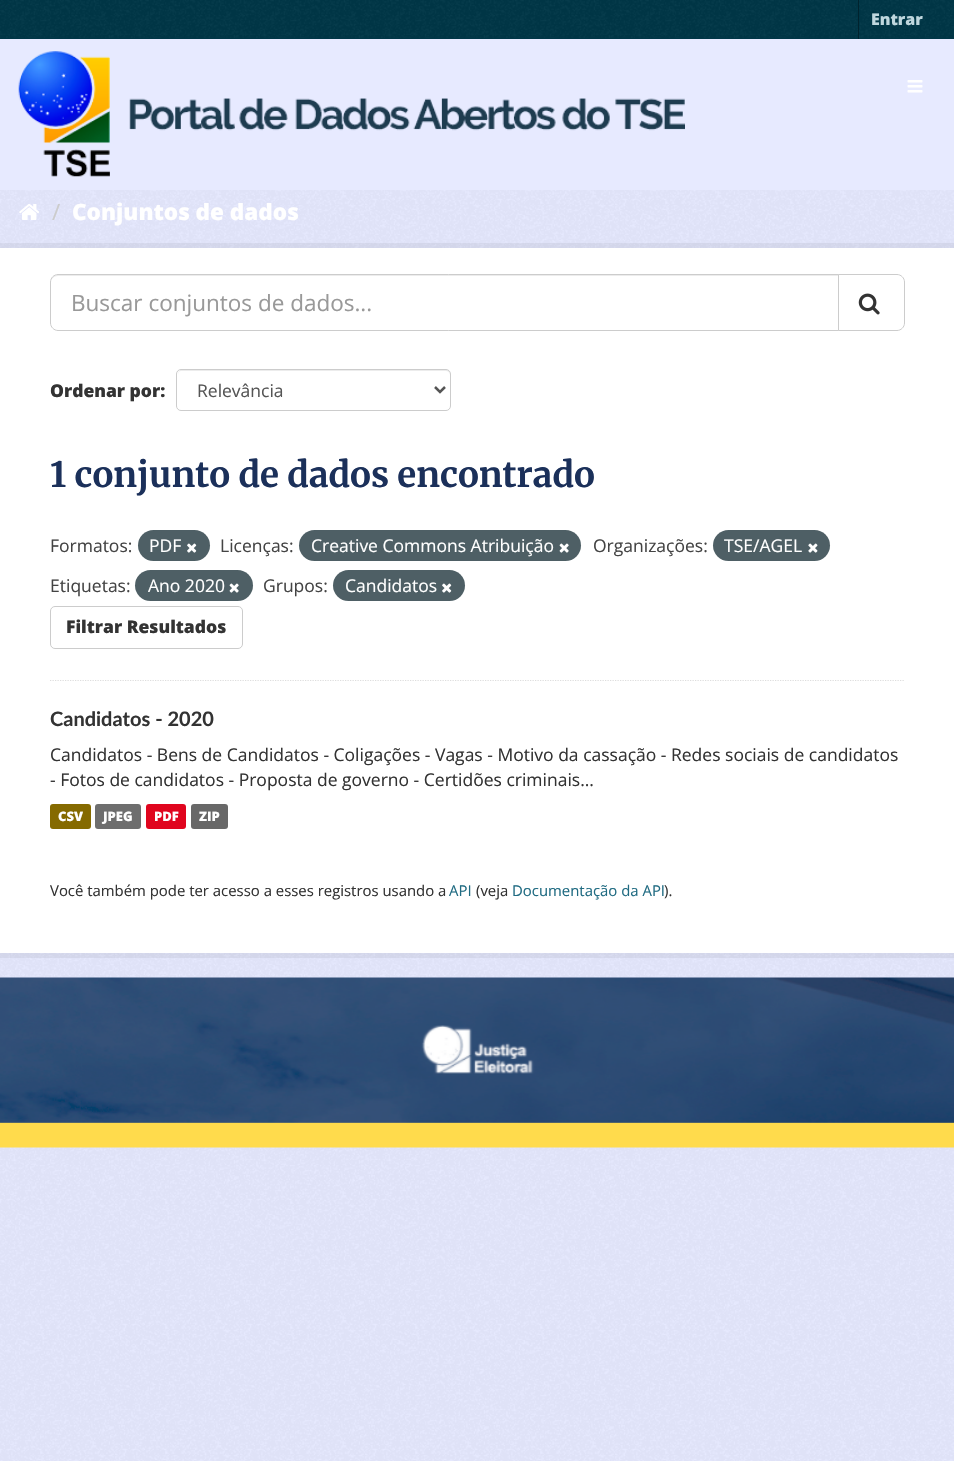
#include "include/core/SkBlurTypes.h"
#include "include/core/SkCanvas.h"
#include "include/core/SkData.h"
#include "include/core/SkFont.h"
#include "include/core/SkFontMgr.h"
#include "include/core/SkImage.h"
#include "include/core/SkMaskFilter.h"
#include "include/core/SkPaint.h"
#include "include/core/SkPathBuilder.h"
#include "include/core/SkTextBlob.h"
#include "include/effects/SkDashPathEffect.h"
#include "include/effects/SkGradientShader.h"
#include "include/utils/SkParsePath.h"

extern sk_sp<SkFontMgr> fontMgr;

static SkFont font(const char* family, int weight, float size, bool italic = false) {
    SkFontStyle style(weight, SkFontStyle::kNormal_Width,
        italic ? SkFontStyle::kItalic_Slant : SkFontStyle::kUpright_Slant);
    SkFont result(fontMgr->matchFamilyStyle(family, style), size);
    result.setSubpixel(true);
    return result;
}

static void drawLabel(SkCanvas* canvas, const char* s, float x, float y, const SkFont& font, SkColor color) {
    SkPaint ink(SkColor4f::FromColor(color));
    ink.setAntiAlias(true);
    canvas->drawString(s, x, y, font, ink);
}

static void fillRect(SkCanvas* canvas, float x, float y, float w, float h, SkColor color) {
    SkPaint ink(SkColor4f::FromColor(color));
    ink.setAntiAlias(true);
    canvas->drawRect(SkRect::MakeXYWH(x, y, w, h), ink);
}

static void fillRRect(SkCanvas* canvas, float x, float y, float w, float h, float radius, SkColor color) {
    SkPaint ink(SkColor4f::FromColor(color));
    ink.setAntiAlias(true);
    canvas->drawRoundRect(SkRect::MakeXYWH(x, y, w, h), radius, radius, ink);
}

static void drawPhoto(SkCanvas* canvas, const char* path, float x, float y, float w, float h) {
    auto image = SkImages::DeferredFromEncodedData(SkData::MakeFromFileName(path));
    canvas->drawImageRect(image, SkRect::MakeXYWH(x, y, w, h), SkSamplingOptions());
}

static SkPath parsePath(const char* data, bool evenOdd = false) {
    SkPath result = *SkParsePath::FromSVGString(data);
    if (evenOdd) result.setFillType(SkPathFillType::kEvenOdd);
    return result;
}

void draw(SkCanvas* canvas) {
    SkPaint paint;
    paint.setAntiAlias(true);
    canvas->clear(0xFFE7EAFF);
    drawPhoto(canvas, "assets/img1.png", 0, 190, 954, 1271);
    fillRect(canvas, 0, 0, 954, 39, 0xFF003647);
    drawPhoto(canvas, "assets/img2.png", 0, 0, 954, 38);
    fillRect(canvas, 858, 0, 1, 39, 0xFF00232E);
    SkFont font1 = font("Open Sans", 800, 16);
    drawLabel(canvas, "Entrar", 871, 25, font1, 0xFFBFD7DE);
    drawPhoto(canvas, "assets/img3.png", 18, 51, 667, 126);
    drawPhoto(canvas, "assets/img4.png", 907, 80, 16, 13);
    drawPhoto(canvas, "assets/img5.png", 19, 204, 20, 16);
    SkFont font2 = font("Open Sans", 400, 22.5f);
    drawLabel(canvas, "/", 52, 220, font2, 0xFFCCCCCC);
    SkFont font3 = font("Open Sans", 800, 22.5f);
    drawLabel(canvas, "Conjuntos de dados", 72, 220, font3, 0xFFFFFFFF);
    paint.setStroke(true);
    paint.setStrokeWidth(5);
    paint.setColor(0x0D000000);
    canvas->drawRect(SkRect::MakeXYWH(-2.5f, 245.5f, 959, 710), paint);
    fillRect(canvas, 0, 248, 954, 705, 0xFFFFFFFF);
    paint.setStrokeWidth(1.2f);
    paint.setColor(0xFFDDDDDD);
    paint.setPathEffect(SkDashPathEffect::Make({{1.25f, 1.25f}}, 0));
    canvas->drawPath(parsePath("M50 680.5H905"), paint);
    paint.setPathEffect(nullptr);
    paint.setStroke(false);
    paint.setColor(0xFFECECEC);
    canvas->drawPath(parsePath("M58 276H838V275H57C53 275 51 278 51 282C51 279 54 276 58 276Z"), paint);
    paint.setStroke(true);
    paint.setStrokeWidth(1);
    paint.setColor(0xFFCCCCCC);
    canvas->drawPath(parsePath("M58 274.5H838.5V330.5H58C54 330.5 50.5 327 50.5 323V282C50.5 278 54 274.5 58 274.5Z"), paint);
    drawLabel(canvas, "Buscar conjuntos de dados...", 71, 311, font2, 0xFF999999);
    paint.setStroke(false);
    paint.setColor(0xFFFFFFFF);
    canvas->drawPath(parsePath("M838.5 274.5H897C901 274.5 904.5 278 904.5 282V323C904.5 327 901 330.5 897 330.5H838.5Z"), paint);
    paint.setStroke(true);
    paint.setColor(0xFFCCCCCC);
    canvas->drawPath(parsePath("M838.5 274.5H897C901 274.5 904.5 278 904.5 282V323C904.5 327 901 330.5 897 330.5H838.5Z"), paint);
    drawPhoto(canvas, "assets/img6.png", 858, 293, 22, 22);
    SkFont font4 = font("Open Sans", 800, 17.5f);
    drawLabel(canvas, "Ordenar por:", 50, 397, font4, 0xFF333333);
    paint.setStroke(false);
    paint.setColor(0xFFECECEC);
    canvas->drawPath(parsePath("M181 371H446C448 371 450 373 450 375C450 372 449 370 446 370H182C179 370 178 372 178 375C178 373 179 371 181 371Z"), paint);
    paint.setStroke(true);
    paint.setColor(0xFFCCCCCC);
    canvas->drawRoundRect(SkRect::MakeXYWH(176.5f, 369.5f, 274, 41), 4.5f, 4.5f, paint);
    paint.setStrokeWidth(2.5f);
    paint.setColor(0xFF555555);
    canvas->drawPath(parsePath("M435 387L440 392L445 387"), paint);
    SkFont font5 = font("Open Sans", 400, 17.5f);
    drawLabel(canvas, "Relevância", 197, 397, font5, 0xFF555555);
    SkFont font6 = font("Merriweather", 700, 35);
    drawLabel(canvas, "1 conjunto de dados encontrado", 50, 487, font6, 0xFF1B305A);
    drawLabel(canvas, "Formatos:", 50, 552, font5, 0xFF444444);
    fillRRect(canvas, 138, 530, 72, 31, 15.5f, 0xFF4E5F65);
    drawLabel(canvas, "PDF", 149, 552, font5, 0xFFFFFFFF);
    drawPhoto(canvas, "assets/img7.png", 187, 543, 10, 10);
    drawLabel(canvas, "Licenças:", 220, 552, font5, 0xFF444444);
    fillRRect(canvas, 299, 530, 282, 31, 15.5f, 0xFF4E5F65);
    drawLabel(canvas, "Creative Commons Atribuição", 311, 552, font5, 0xFFFFFFFF);
    drawPhoto(canvas, "assets/img8.png", 559, 543, 10, 10);
    drawLabel(canvas, "Organizações:", 593, 552, font5, 0xFF444444);
    fillRRect(canvas, 713, 530, 117, 31, 15.5f, 0xFF4E5F65);
    drawLabel(canvas, "TSE/AGEL", 724, 552, font5, 0xFFFFFFFF);
    drawPhoto(canvas, "assets/img9.png", 808, 543, 10, 10);
    drawLabel(canvas, "Etiquetas:", 50, 592, font5, 0xFF444444);
    fillRRect(canvas, 135, 570, 118, 31, 15.5f, 0xFF4E5F65);
    drawLabel(canvas, "Ano 2020", 148, 592, font5, 0xFFFFFFFF);
    drawPhoto(canvas, "assets/img8.png", 229, 583, 10, 10);
    drawLabel(canvas, "Grupos:", 263, 592, font5, 0xFF444444);
    fillRRect(canvas, 333, 570, 132, 31, 15.5f, 0xFF4E5F65);
    drawLabel(canvas, "Candidatos", 345, 592, font5, 0xFFFFFFFF);
    drawPhoto(canvas, "assets/img7.png", 442, 583, 10, 10);
    paint.setStrokeWidth(1);
    paint.setColor(0xFFCCCCCC);
    canvas->drawRoundRect(SkRect::MakeXYWH(50.5f, 606.5f, 192, 42), 4.5f, 4.5f, paint);
    drawLabel(canvas, "Filtrar Resultados", 66, 633, font4, 0xFF333333);
    SkFont font7 = font("Lato", 700, 20);
    drawLabel(canvas, "Candidatos - 2020", 50, 726, font7, 0xFF333333);
    drawLabel(canvas, "Candidatos - Bens de Candidatos - Coligações - Vagas - Motivo da cassação - Redes sociais de candidatos", 50, 761, font5, 0xFF333333);
    drawLabel(canvas, "- Fotos de candidatos - Proposta de governo - Certidões criminais...", 50, 786, font5, 0xFF333333);
    fillRRect(canvas, 50, 804, 41, 25, 3, 0xFF856A00);
    SkFont font8 = font("Open Sans", 800, 13);
    drawLabel(canvas, "CSV", 58, 821, font8, 0xFFFFFFFF);
    fillRRect(canvas, 95, 804, 46, 25, 3, 0xFF6E6E6E);
    drawLabel(canvas, "JPEG", 103, 821, font8, 0xFFFFFFFF);
    fillRRect(canvas, 146, 804, 40, 25, 3, 0xFFE0051E);
    drawLabel(canvas, "PDF", 154, 821, font8, 0xFFFFFFFF);
    fillRRect(canvas, 191, 804, 37, 25, 3, 0xFF686868);
    drawLabel(canvas, "ZIP", 199, 821, font8, 0xFFFFFFFF);
    SkFont font9 = font("Open Sans", 400, 14.9f);
    drawLabel(canvas, "Você também pode ter acesso a esses registros usando a", 50, 896, font9, 0xFF333333);
    drawLabel(canvas, "API", 449, 896, font9, 0xFF206B82);
    drawLabel(canvas, "(veja", 476, 896, font9, 0xFF333333);
    drawLabel(canvas, "Documentação da API", 512, 896, font9, 0xFF206B82);
    drawLabel(canvas, ").", 664, 896, font9, 0xFF333333);
    drawPhoto(canvas, "assets/img10.png", 0, 977, 954, 171);
}
